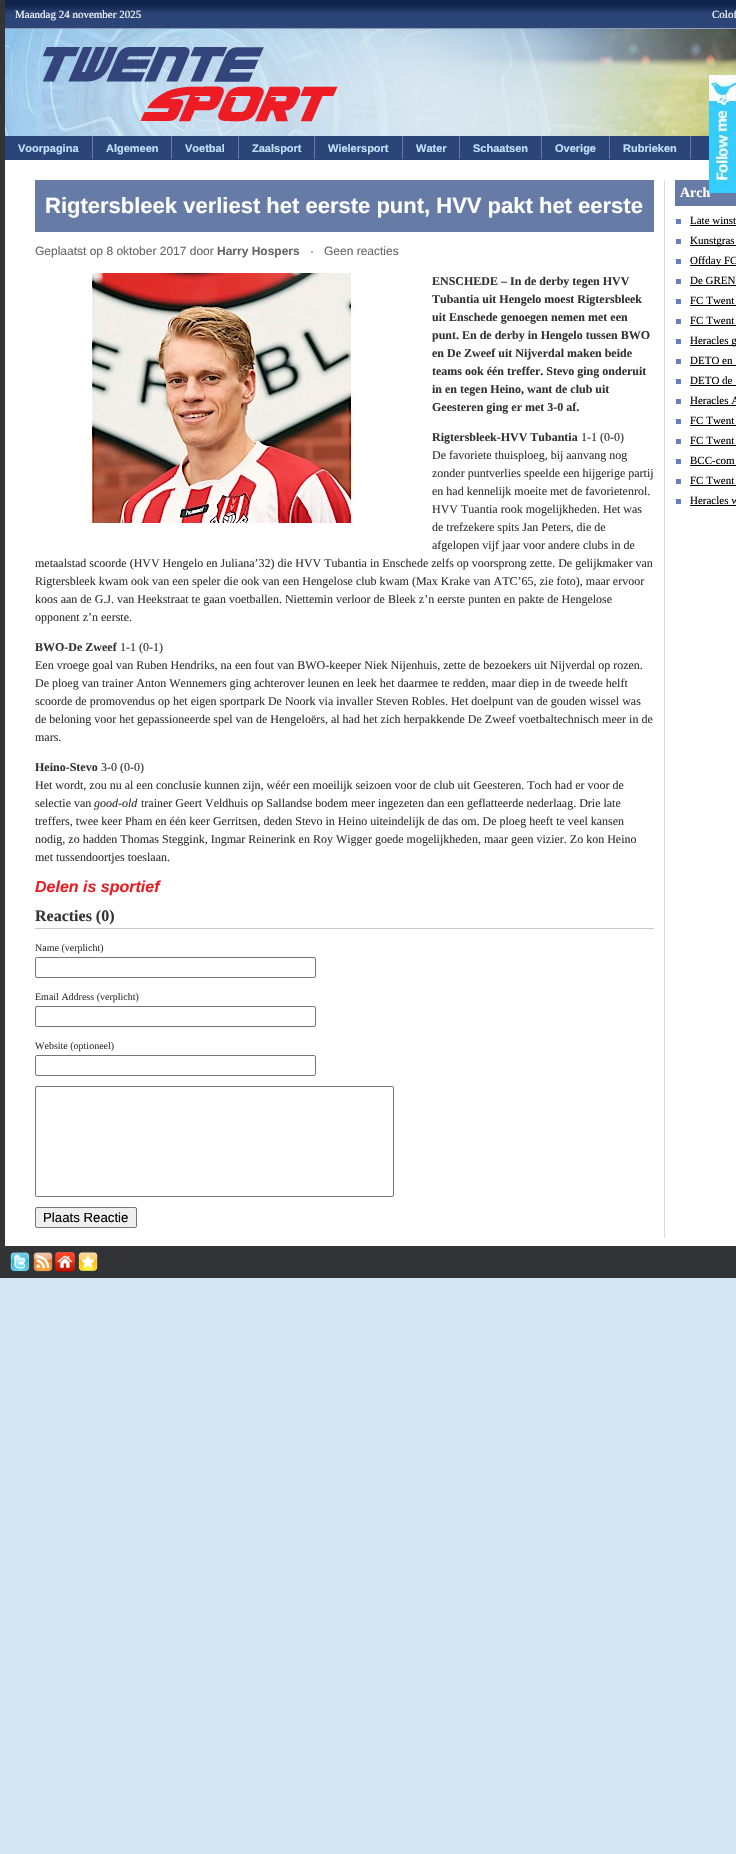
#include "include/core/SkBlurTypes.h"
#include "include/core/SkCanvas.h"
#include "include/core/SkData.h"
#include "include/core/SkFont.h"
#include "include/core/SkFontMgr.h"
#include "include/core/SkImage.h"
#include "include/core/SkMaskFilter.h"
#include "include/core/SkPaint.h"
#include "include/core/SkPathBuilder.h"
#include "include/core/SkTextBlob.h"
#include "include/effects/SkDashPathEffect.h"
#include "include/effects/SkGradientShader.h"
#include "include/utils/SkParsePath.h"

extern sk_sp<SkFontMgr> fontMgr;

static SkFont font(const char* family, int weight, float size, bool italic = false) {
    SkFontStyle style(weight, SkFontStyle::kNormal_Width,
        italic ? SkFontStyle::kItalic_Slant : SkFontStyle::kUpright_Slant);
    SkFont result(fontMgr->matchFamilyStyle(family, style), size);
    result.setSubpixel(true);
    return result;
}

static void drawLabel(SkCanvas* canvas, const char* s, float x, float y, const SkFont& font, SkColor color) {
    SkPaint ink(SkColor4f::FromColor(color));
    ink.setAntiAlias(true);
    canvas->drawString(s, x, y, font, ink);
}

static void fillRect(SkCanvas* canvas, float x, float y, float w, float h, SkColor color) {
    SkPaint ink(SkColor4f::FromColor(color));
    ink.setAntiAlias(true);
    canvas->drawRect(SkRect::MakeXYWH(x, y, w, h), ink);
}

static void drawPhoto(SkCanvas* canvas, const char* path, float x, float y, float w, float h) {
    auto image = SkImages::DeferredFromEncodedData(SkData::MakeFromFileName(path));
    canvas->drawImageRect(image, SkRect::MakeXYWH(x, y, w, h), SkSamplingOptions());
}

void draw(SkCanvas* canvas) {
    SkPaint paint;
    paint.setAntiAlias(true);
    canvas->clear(0xFFD4E5F3);
    fillRect(canvas, 0, 0, 5, 1278, 0xFF343434);
    drawPhoto(canvas, "assets/img1.png", 5, 0, 731, 29);
    SkFont font1 = font("Liberation Serif", 400, 11);
    drawLabel(canvas, "Maandag 24 november 2025", 15, 18, font1, 0xFFFFFFFF);
    drawLabel(canvas, "Colof", 712, 18, font1, 0xFFFFFFFF);
    drawPhoto(canvas, "assets/img2.png", 5, 29, 731, 107);
    fillRect(canvas, 5, 136, 704, 24, 0xFF2C4578);
    fillRect(canvas, 92, 136, 1, 23, 0xFF697CA7);
    SkFont font2 = font("Liberation Sans", 700, 11);
    drawLabel(canvas, "Voorpagina", 18, 152, font2, 0xFFBEE1FC);
    fillRect(canvas, 171, 136, 1, 23, 0xFF697CA7);
    drawLabel(canvas, "Algemeen", 106, 152, font2, 0xFFBEE1FC);
    fillRect(canvas, 238, 136, 1, 23, 0xFF697CA7);
    drawLabel(canvas, "Voetbal", 185, 152, font2, 0xFFBEE1FC);
    fillRect(canvas, 314, 136, 1, 23, 0xFF697CA7);
    drawLabel(canvas, "Zaalsport", 252, 152, font2, 0xFFBEE1FC);
    fillRect(canvas, 402, 136, 1, 23, 0xFF697CA7);
    drawLabel(canvas, "Wielersport", 328, 152, font2, 0xFFBEE1FC);
    fillRect(canvas, 459, 136, 1, 23, 0xFF697CA7);
    drawLabel(canvas, "Water", 416, 152, font2, 0xFFBEE1FC);
    fillRect(canvas, 541, 136, 1, 23, 0xFF697CA7);
    drawLabel(canvas, "Schaatsen", 473, 152, font2, 0xFFBEE1FC);
    fillRect(canvas, 609, 136, 1, 23, 0xFF697CA7);
    drawLabel(canvas, "Overige", 555, 152, font2, 0xFFBEE1FC);
    fillRect(canvas, 690, 136, 1, 23, 0xFF697CA7);
    drawLabel(canvas, "Rubrieken", 623, 152, font2, 0xFFBEE1FC);
    fillRect(canvas, 5, 160, 731, 1086, 0xFFFFFFFF);
    fillRect(canvas, 675, 180, 61, 26, 0xFF667CA7);
    SkFont font3 = font("Liberation Serif", 700, 14);
    drawLabel(canvas, "Arch", 680, 197, font3, 0xFFFFFFFF);
    drawPhoto(canvas, "assets/img3.png", 709, 75, 27, 118);
    fillRect(canvas, 664, 180, 1, 1058, 0xFFDDDDDD);
    fillRect(canvas, 35, 180, 619, 52, 0xFF667CA7);
    SkFont font4 = font("Liberation Sans", 700, 22);
    drawLabel(canvas, "Rigtersbleek verliest het eerste punt, HVV pakt het eerste", 45, 213, font4, 0xFFFFFFFF);
    SkFont font5 = font("Liberation Sans", 400, 12);
    drawLabel(canvas, "Geplaatst op 8 oktober 2017 door", 35, 255, font5, 0xFF666666);
    SkFont font6 = font("Liberation Sans", 700, 12);
    drawLabel(canvas, "Harry Hospers", 217, 255, font6, 0xFF666666);
    drawLabel(canvas, "·   Geen reacties", 310, 255, font5, 0xFF666666);
    drawPhoto(canvas, "assets/img4.png", 89, 273, 267, 250);
    SkFont font7 = font("Liberation Serif", 700, 12);
    drawLabel(canvas, "ENSCHEDE – In de derby tegen HVV", 432, 285, font7, 0xFF333333);
    drawLabel(canvas, "Tubantia uit Hengelo moest Rigtersbleek", 432, 303, font7, 0xFF333333);
    drawLabel(canvas, "uit Enschede genoegen nemen met een", 432, 321, font7, 0xFF333333);
    drawLabel(canvas, "punt. En de derby in Hengelo tussen BWO", 432, 339, font7, 0xFF333333);
    drawLabel(canvas, "en De Zweef uit Nijverdal maken beide", 432, 357, font7, 0xFF333333);
    drawLabel(canvas, "teams ook één treffer. Stevo ging onderuit", 432, 375, font7, 0xFF333333);
    drawLabel(canvas, "in en tegen Heino, want de club uit", 432, 393, font7, 0xFF333333);
    drawLabel(canvas, "Geesteren ging er met 3-0 af.", 432, 411, font7, 0xFF333333);
    drawLabel(canvas, "Rigtersbleek-HVV Tubantia", 432, 441, font7, 0xFF333333);
    SkFont font8 = font("Liberation Serif", 400, 12);
    drawLabel(canvas, "1-1 (0-0)", 581, 441, font8, 0xFF333333);
    drawLabel(canvas, "De favoriete thuisploeg, bij aanvang nog", 432, 459, font8, 0xFF333333);
    drawLabel(canvas, "zonder puntverlies speelde een hijgerige partij", 432, 477, font8, 0xFF333333);
    drawLabel(canvas, "en had kennelijk moeite met de favorietenrol.", 432, 495, font8, 0xFF333333);
    drawLabel(canvas, "HVV Tuantia rook mogelijkheden. Het was", 432, 513, font8, 0xFF333333);
    drawLabel(canvas, "de trefzekere spits Jan Peters, die de", 432, 531, font8, 0xFF333333);
    drawLabel(canvas, "afgelopen vijf jaar voor andere clubs in de", 432, 549, font8, 0xFF333333);
    drawLabel(canvas, "metaalstad scoorde (HVV Hengelo en Juliana’32) die HVV Tubantia in Enschede zelfs op voorsprong zette. De gelijkmaker van", 35, 567, font8, 0xFF333333);
    drawLabel(canvas, "Rigtersbleek kwam ook van een speler die ook van een Hengelose club kwam (Max Krake van ATC’65, zie foto), maar ervoor", 35, 585, font8, 0xFF333333);
    drawLabel(canvas, "koos aan de G.J. van Heekstraat te gaan voetballen. Niettemin verloor de Bleek z’n eerste punten en pakte de Hengelose", 35, 603, font8, 0xFF333333);
    drawLabel(canvas, "opponent z’n eerste.", 35, 621, font8, 0xFF333333);
    drawLabel(canvas, "BWO-De Zweef", 35, 651, font7, 0xFF333333);
    drawLabel(canvas, "1-1 (0-1)", 120, 651, font8, 0xFF333333);
    drawLabel(canvas, "Een vroege goal van Ruben Hendriks, na een fout van BWO-keeper Niek Nijenhuis, zette de bezoekers uit Nijverdal op rozen.", 35, 669, font8, 0xFF333333);
    drawLabel(canvas, "De ploeg van trainer Anton Wennemers ging achterover leunen en leek het daarmee te redden, maar diep in de tweede helft", 35, 687, font8, 0xFF333333);
    drawLabel(canvas, "scoorde de promovendus op het eigen sportpark De Noork via invaller Steven Robles. Het doelpunt van de gouden wissel was", 35, 705, font8, 0xFF333333);
    drawLabel(canvas, "de beloning voor het gepassioneerde spel van de Hengeloërs, al had het zich herpakkende De Zweef voetbaltechnisch meer in de", 35, 723, font8, 0xFF333333);
    drawLabel(canvas, "mars.", 35, 741, font8, 0xFF333333);
    drawLabel(canvas, "Heino-Stevo", 35, 771, font7, 0xFF333333);
    drawLabel(canvas, "3-0 (0-0)", 101, 771, font8, 0xFF333333);
    drawLabel(canvas, "Het wordt, zou nu al een conclusie kunnen zijn, wéér een moeilijk seizoen voor de club uit Geesteren. Toch had er voor de", 35, 789, font8, 0xFF333333);
    drawLabel(canvas, "selectie van", 35, 807, font8, 0xFF333333);
    SkFont font9 = font("Liberation Serif", 400, 12, true);
    drawLabel(canvas, "good-old", 94, 807, font9, 0xFF333333);
    drawLabel(canvas, "trainer Geert Veldhuis op Sallandse bodem meer ingezeten dan een geflatteerde nederlaag. Drie late", 141, 807, font8, 0xFF333333);
    drawLabel(canvas, "treffers, twee keer Pham en één keer Gerritsen, deden Stevo in Heino uiteindelijk de das om. De ploeg heeft te veel kansen", 35, 825, font8, 0xFF333333);
    drawLabel(canvas, "nodig, zo hadden Thomas Steggink, Ingmar Reinerink en Roy Wigger goede mogelijkheden, maar geen vizier. Zo kon Heino", 35, 843, font8, 0xFF333333);
    drawLabel(canvas, "met tussendoortjes toeslaan.", 35, 861, font8, 0xFF333333);
    SkFont font10 = font("Liberation Sans", 700, 16, true);
    drawLabel(canvas, "Delen is sportief", 35, 892, font10, 0xFFEB1C22);
    fillRect(canvas, 35, 928, 619, 1, 0xFFC0CCD3);
    SkFont font11 = font("Liberation Serif", 700, 16);
    drawLabel(canvas, "Reacties (0)", 35, 921, font11, 0xFF333333);
    SkFont font12 = font("Liberation Serif", 400, 10);
    drawLabel(canvas, "Name (verplicht)", 35, 951, font12, 0xFF333333);
    paint.setStroke(true);
    paint.setStrokeWidth(1);
    paint.setColor(0xFF767676);
    canvas->drawRoundRect(SkRect::MakeXYWH(35.5f, 957.5f, 280, 20), 1.5f, 1.5f, paint);
    drawLabel(canvas, "Email Address (verplicht)", 35, 1000, font12, 0xFF333333);
    canvas->drawRoundRect(SkRect::MakeXYWH(35.5f, 1006.5f, 280, 20), 1.5f, 1.5f, paint);
    drawLabel(canvas, "Website (optioneel)", 35, 1049, font12, 0xFF333333);
    canvas->drawRoundRect(SkRect::MakeXYWH(35.5f, 1055.5f, 280, 20), 1.5f, 1.5f, paint);
    canvas->drawRoundRect(SkRect::MakeXYWH(35.5f, 1086.5f, 358, 110), 1.5f, 1.5f, paint);
    paint.setStroke(false);
    paint.setColor(0xFFEFEFEF);
    canvas->drawRoundRect(SkRect::MakeXYWH(35.5f, 1207.5f, 101, 20), 1.5f, 1.5f, paint);
    paint.setStroke(true);
    paint.setColor(0xFF767676);
    canvas->drawRoundRect(SkRect::MakeXYWH(35.5f, 1207.5f, 101, 20), 1.5f, 1.5f, paint);
    SkFont font13 = font("Liberation Sans", 400, 13.25f);
    drawLabel(canvas, "Plaats Reactie", 43, 1222, font13, 0xFF000000);
    drawLabel(canvas, "Late winst", 690, 224, font1, 0xFF000000);
    fillRect(canvas, 676, 219, 5, 5, 0xFF6181C1);
    fillRect(canvas, 690, 225, 46, 1, 0xFF000000);
    fillRect(canvas, 690, 245, 46, 1, 0xFF000000);
    drawLabel(canvas, "Kunstgras", 690, 244, font1, 0xFF000000);
    fillRect(canvas, 676, 239, 5, 5, 0xFF6181C1);
    fillRect(canvas, 690, 265, 46, 1, 0xFF000000);
    drawLabel(canvas, "Offday FC", 690, 264, font1, 0xFF000000);
    fillRect(canvas, 676, 259, 5, 5, 0xFF6181C1);
    drawLabel(canvas, "De GREN", 690, 284, font1, 0xFF000000);
    fillRect(canvas, 676, 279, 5, 5, 0xFF6181C1);
    fillRect(canvas, 690, 285, 46, 1, 0xFF000000);
    drawLabel(canvas, "FC Twent", 690, 304, font1, 0xFF000000);
    fillRect(canvas, 676, 299, 5, 5, 0xFF6181C1);
    fillRect(canvas, 690, 305, 46, 1, 0xFF000000);
    drawLabel(canvas, "FC Twent", 690, 324, font1, 0xFF000000);
    fillRect(canvas, 676, 319, 5, 5, 0xFF6181C1);
    fillRect(canvas, 690, 325, 46, 1, 0xFF000000);
    fillRect(canvas, 690, 345, 46, 1, 0xFF000000);
    drawLabel(canvas, "Heracles g", 690, 344, font1, 0xFF000000);
    fillRect(canvas, 676, 339, 5, 5, 0xFF6181C1);
    drawLabel(canvas, "DETO en", 690, 364, font1, 0xFF000000);
    fillRect(canvas, 676, 359, 5, 5, 0xFF6181C1);
    fillRect(canvas, 690, 365, 46, 1, 0xFF000000);
    drawLabel(canvas, "DETO de", 690, 384, font1, 0xFF000000);
    fillRect(canvas, 676, 379, 5, 5, 0xFF6181C1);
    fillRect(canvas, 690, 385, 46, 1, 0xFF000000);
    drawLabel(canvas, "Heracles A", 690, 404, font1, 0xFF000000);
    fillRect(canvas, 676, 399, 5, 5, 0xFF6181C1);
    fillRect(canvas, 690, 405, 46, 1, 0xFF000000);
    drawLabel(canvas, "FC Twent", 690, 424, font1, 0xFF000000);
    fillRect(canvas, 676, 419, 5, 5, 0xFF6181C1);
    fillRect(canvas, 690, 425, 46, 1, 0xFF000000);
    drawLabel(canvas, "FC Twent", 690, 444, font1, 0xFF000000);
    fillRect(canvas, 676, 439, 5, 5, 0xFF6181C1);
    fillRect(canvas, 690, 445, 46, 1, 0xFF000000);
    drawLabel(canvas, "BCC-com", 690, 464, font1, 0xFF000000);
    fillRect(canvas, 676, 459, 5, 5, 0xFF6181C1);
    fillRect(canvas, 690, 465, 46, 1, 0xFF000000);
    drawLabel(canvas, "FC Twent", 690, 484, font1, 0xFF000000);
    fillRect(canvas, 676, 479, 5, 5, 0xFF6181C1);
    fillRect(canvas, 690, 485, 46, 1, 0xFF000000);
    drawLabel(canvas, "Heracles w", 690, 504, font1, 0xFF000000);
    fillRect(canvas, 676, 499, 5, 5, 0xFF6181C1);
    fillRect(canvas, 690, 505, 46, 1, 0xFF000000);
    fillRect(canvas, 5, 1246, 731, 32, 0xFF313336);
    drawPhoto(canvas, "assets/img5.png", 10, 1252, 20, 20);
    drawPhoto(canvas, "assets/img6.png", 33, 1252, 20, 20);
    drawPhoto(canvas, "assets/img7.png", 55, 1252, 20, 20);
    drawPhoto(canvas, "assets/img8.png", 78, 1252, 20, 19);
}
